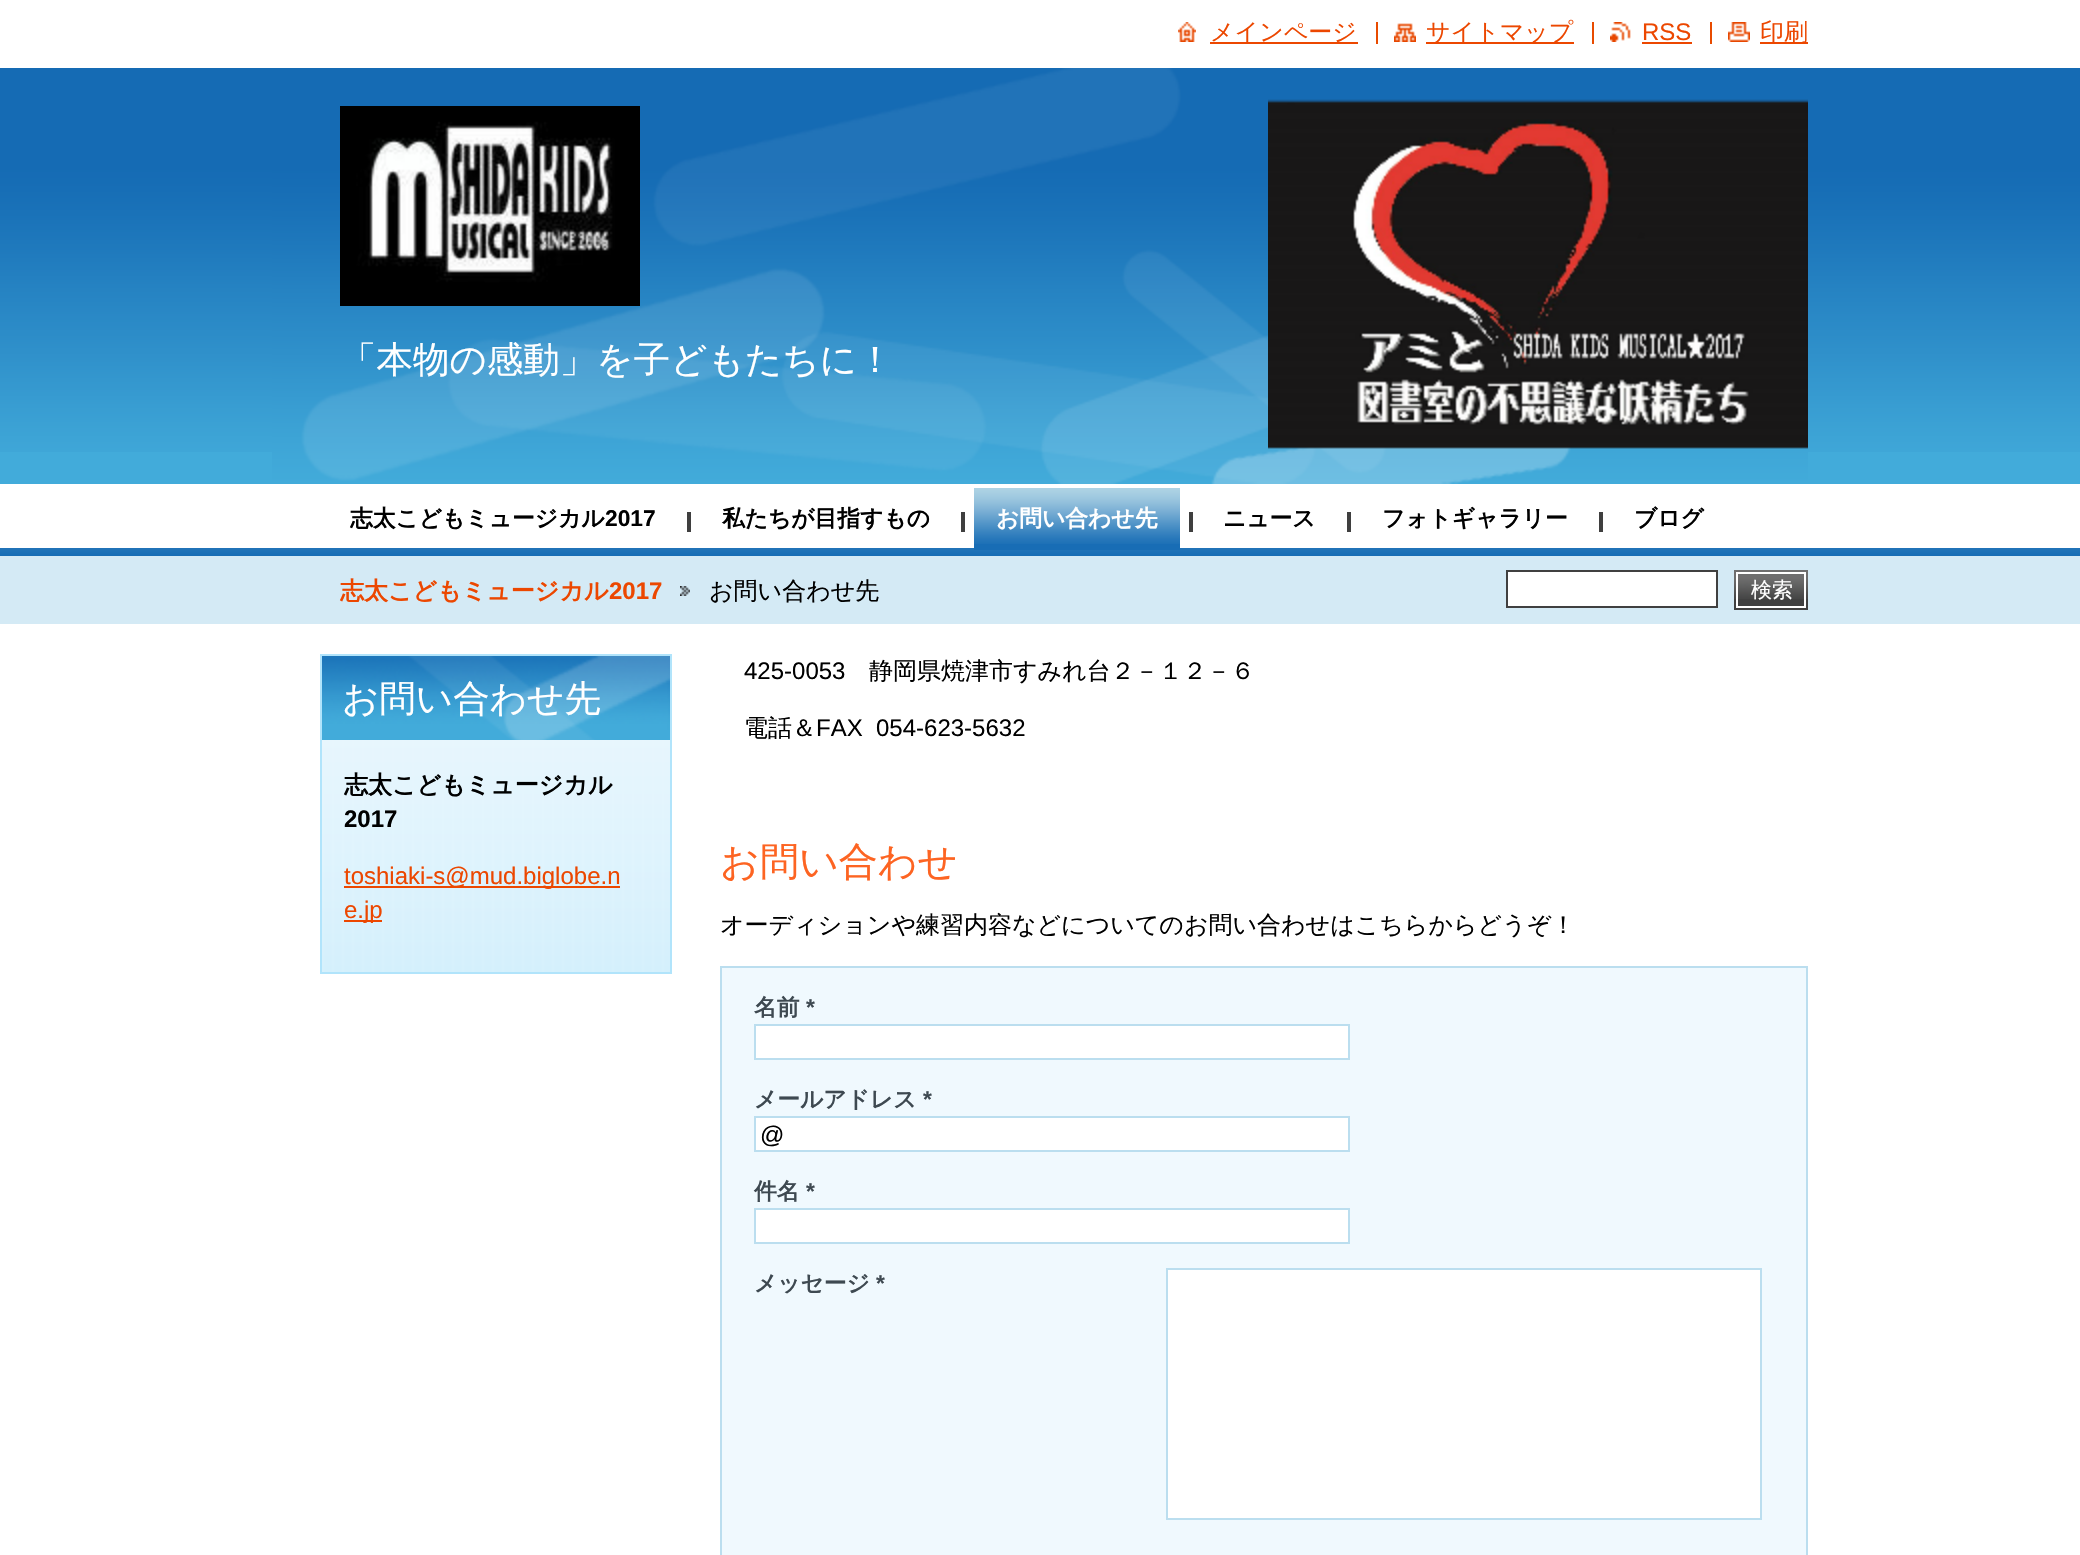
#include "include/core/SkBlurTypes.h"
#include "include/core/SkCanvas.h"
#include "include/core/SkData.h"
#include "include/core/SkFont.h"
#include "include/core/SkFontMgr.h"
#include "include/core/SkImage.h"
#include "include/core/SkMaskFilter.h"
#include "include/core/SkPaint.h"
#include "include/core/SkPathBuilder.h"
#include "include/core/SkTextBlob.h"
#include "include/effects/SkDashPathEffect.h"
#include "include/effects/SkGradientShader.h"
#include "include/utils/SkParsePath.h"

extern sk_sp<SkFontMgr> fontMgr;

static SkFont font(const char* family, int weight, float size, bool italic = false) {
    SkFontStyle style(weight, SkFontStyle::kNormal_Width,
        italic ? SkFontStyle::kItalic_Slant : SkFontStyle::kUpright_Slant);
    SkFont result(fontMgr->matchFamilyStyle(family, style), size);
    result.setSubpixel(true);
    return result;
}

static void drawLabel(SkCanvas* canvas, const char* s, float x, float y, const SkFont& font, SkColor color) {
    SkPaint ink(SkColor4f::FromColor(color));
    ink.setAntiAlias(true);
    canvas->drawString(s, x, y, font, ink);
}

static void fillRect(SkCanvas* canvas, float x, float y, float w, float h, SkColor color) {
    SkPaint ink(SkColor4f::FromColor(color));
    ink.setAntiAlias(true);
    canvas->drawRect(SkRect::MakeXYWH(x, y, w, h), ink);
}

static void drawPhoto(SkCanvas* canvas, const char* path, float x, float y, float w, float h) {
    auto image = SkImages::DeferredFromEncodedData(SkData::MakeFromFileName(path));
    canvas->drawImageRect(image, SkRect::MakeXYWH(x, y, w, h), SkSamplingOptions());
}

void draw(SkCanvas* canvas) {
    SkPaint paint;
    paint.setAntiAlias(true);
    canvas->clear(0xFFFFFFFF);
    drawPhoto(canvas, "assets/img1.png", 1178, 22, 18, 20);
    fillRect(canvas, 1210, 42, 148, 2, 0xFFEC4700);
    SkFont font1 = font("WenQuanYi Zen Hei", 500, 24);
    drawLabel(canvas, "メインページ", 1210, 40, font1, 0xFFEC4700);
    drawPhoto(canvas, "assets/img2.png", 1394, 23, 22, 19);
    fillRect(canvas, 1426, 42, 148, 2, 0xFFEC4700);
    drawLabel(canvas, "サイトマップ", 1426, 40, font1, 0xFFEC4700);
    fillRect(canvas, 1376, 22, 2, 22, 0xFFE84B00);
    drawPhoto(canvas, "assets/img3.png", 1610, 22, 21, 20);
    SkFont font2 = font("Liberation Sans", 400, 24);
    drawLabel(canvas, "RSS", 1642, 40, font2, 0xFFEC4700);
    fillRect(canvas, 1592, 22, 2, 22, 0xFFE84B00);
    fillRect(canvas, 1642, 42, 50, 2, 0xFFEC4700);
    drawPhoto(canvas, "assets/img4.png", 1728, 22, 22, 20);
    fillRect(canvas, 1760, 42, 48, 2, 0xFFEC4700);
    drawLabel(canvas, "印刷", 1760, 40, font1, 0xFFEC4700);
    fillRect(canvas, 1710, 22, 2, 22, 0xFFE84B00);
    fillRect(canvas, 0, 452, 2080, 32, 0xFF42ABDA);
    drawPhoto(canvas, "assets/img5.png", 0, 68, 2080, 384);
    drawPhoto(canvas, "assets/img6.png", 272, 68, 1536, 416);
    drawPhoto(canvas, "assets/img7.png", 340, 106, 300, 200);
    SkFont font3 = font("WenQuanYi Zen Hei", 500, 36.5f);
    drawLabel(canvas, "「本物の感動」を子どもたちに！", 340, 372, font3, 0xFFFFFFFF);
    drawPhoto(canvas, "assets/img8.png", 1268, 99, 540, 350);
    SkFont font4 = font("WenQuanYi Zen Hei", 700, 22.75f);
    drawLabel(canvas, "志太こどもミュージカル", 350, 526, font4, 0xFF000000);
    SkFont font5 = font("Liberation Sans", 700, 22.75f);
    drawLabel(canvas, "2017", 605, 526, font5, 0xFF000000);
    fillRect(canvas, 687, 512, 4, 20, 0xFF3F3F3F);
    drawLabel(canvas, "私たちが目指すもの", 722, 526, font4, 0xFF000000);
    fillRect(canvas, 961, 512, 4, 20, 0xFF3F3F3F);
    drawPhoto(canvas, "assets/img10.png", 0, 548, 2080, 8);
    fillRect(canvas, 974, 544, 206, 6, 0xFF186DB5);
    drawPhoto(canvas, "assets/img9.png", 974, 488, 206, 56);
    drawLabel(canvas, "お問い合わせ先", 996, 526, font4, 0xFFFFFFFF);
    fillRect(canvas, 1189, 512, 4, 20, 0xFF3F3F3F);
    drawLabel(canvas, "ニュース", 1223, 526, font4, 0xFF000000);
    fillRect(canvas, 1347, 512, 4, 20, 0xFF3F3F3F);
    drawLabel(canvas, "フォトギャラリー", 1382, 526, font4, 0xFF000000);
    fillRect(canvas, 1599, 512, 4, 20, 0xFF3F3F3F);
    drawLabel(canvas, "ブログ", 1634, 526, font4, 0xFF000000);
    fillRect(canvas, 0, 556, 2080, 68, 0xFFD4EAF5);
    SkFont font6 = font("WenQuanYi Zen Hei", 700, 24);
    drawLabel(canvas, "志太こどもミュージカル", 340, 599, font6, 0xFFEC4700);
    SkFont font7 = font("Liberation Sans", 700, 24);
    drawLabel(canvas, "2017", 609, 599, font7, 0xFFEC4700);
    drawPhoto(canvas, "assets/img11.png", 680, 586, 10, 10);
    drawLabel(canvas, "お問い合わせ先", 709, 599, font1, 0xFF000000);
    paint.setColor(0xFFFFFFFF);
    canvas->drawRect(SkRect::MakeXYWH(1507, 571, 210, 36), paint);
    paint.setStroke(true);
    paint.setStrokeWidth(2);
    paint.setColor(0xFF404040);
    canvas->drawRect(SkRect::MakeXYWH(1507, 571, 210, 36), paint);
    fillRect(canvas, 1734, 599, 74, 11, 0xFF404040);
    drawPhoto(canvas, "assets/img12.png", 1734, 570, 74, 29);
    drawPhoto(canvas, "assets/img13.png", 1738, 574, 66, 25);
    paint.setColor(0xFFFFFFFF);
    canvas->drawRect(SkRect::MakeXYWH(1737, 573, 68, 34), paint);
    SkFont font8 = font("WenQuanYi Zen Hei", 500, 21);
    drawLabel(canvas, "検索", 1751, 597, font8, 0xFFFFFFFF);
    drawPhoto(canvas, "assets/img14.png", 322, 740, 348, 232);
    paint.setColor(0xFFB1E4FB);
    canvas->drawRect(SkRect::MakeXYWH(321, 655, 350, 318), paint);
    drawPhoto(canvas, "assets/img15.png", 322, 656, 348, 84);
    drawLabel(canvas, "お問い合わせ先", 342, 711, font3, 0xFFFFFFFF);
    drawLabel(canvas, "志太こどもミュージカル", 344, 793, font6, 0xFF000000);
    drawLabel(canvas, "2017", 344, 827, font7, 0xFF000000);
    fillRect(canvas, 344, 886, 276, 2, 0xFFEC4700);
    drawLabel(canvas, "toshiaki-s@mud.biglobe.n", 344, 884, font2, 0xFFEC4700);
    fillRect(canvas, 344, 920, 38, 2, 0xFFEC4700);
    drawLabel(canvas, "e.jp", 344, 918, font2, 0xFFEC4700);
    drawLabel(canvas, "425-0053", 744, 679, font2, 0xFF000000);
    drawLabel(canvas, "静岡県焼津市すみれ台２－１２－６", 869, 679, font1, 0xFF000000);
    drawLabel(canvas, "電話＆", 744, 736, font1, 0xFF000000);
    drawLabel(canvas, "FAX  054-623-5632", 816, 736, font2, 0xFF000000);
    SkFont font9 = font("WenQuanYi Zen Hei", 500, 39);
    drawLabel(canvas, "お問い合わせ", 720, 875, font9, 0xFFFD6422);
    drawLabel(canvas, "オーディションや練習内容などについてのお問い合わせはこちらからどうぞ！", 720, 933, font1, 0xFF000000);
    paint.setStroke(false);
    paint.setColor(0xFFF0F9FE);
    canvas->drawRect(SkRect::MakeXYWH(721, 967, 1086, 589), paint);
    paint.setStroke(true);
    paint.setColor(0xFFBBDEEF);
    canvas->drawRect(SkRect::MakeXYWH(721, 967, 1086, 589), paint);
    drawLabel(canvas, "名前", 754, 1015, font4, 0xFF3E4951);
    drawLabel(canvas, "*", 806, 1015, font5, 0xFF3E4951);
    paint.setStroke(false);
    paint.setColor(0xFFFFFFFF);
    canvas->drawRect(SkRect::MakeXYWH(755, 1025, 594, 34), paint);
    paint.setStroke(true);
    paint.setColor(0xFFBBDEEF);
    canvas->drawRect(SkRect::MakeXYWH(755, 1025, 594, 34), paint);
    drawLabel(canvas, "メールアドレス", 754, 1107, font4, 0xFF3E4951);
    drawLabel(canvas, "*", 923, 1107, font5, 0xFF3E4951);
    paint.setStroke(false);
    paint.setColor(0xFFFFFFFF);
    canvas->drawRect(SkRect::MakeXYWH(755, 1117, 594, 34), paint);
    paint.setStroke(true);
    paint.setColor(0xFFBBDEEF);
    canvas->drawRect(SkRect::MakeXYWH(755, 1117, 594, 34), paint);
    drawLabel(canvas, "@", 760, 1143, font2, 0xFF000000);
    drawLabel(canvas, "件名", 754, 1199, font4, 0xFF3E4951);
    drawLabel(canvas, "*", 806, 1199, font5, 0xFF3E4951);
    paint.setStroke(false);
    paint.setColor(0xFFFFFFFF);
    canvas->drawRect(SkRect::MakeXYWH(755, 1209, 594, 34), paint);
    paint.setStroke(true);
    paint.setColor(0xFFBBDEEF);
    canvas->drawRect(SkRect::MakeXYWH(755, 1209, 594, 34), paint);
    drawLabel(canvas, "メッセージ", 754, 1291, font4, 0xFF3E4951);
    drawLabel(canvas, "*", 876, 1291, font5, 0xFF3E4951);
    paint.setStroke(false);
    paint.setColor(0xFFFFFFFF);
    canvas->drawRect(SkRect::MakeXYWH(1167, 1269, 594, 250), paint);
    paint.setStroke(true);
    paint.setColor(0xFFBBDEEF);
    canvas->drawRect(SkRect::MakeXYWH(1167, 1269, 594, 250), paint);
}
